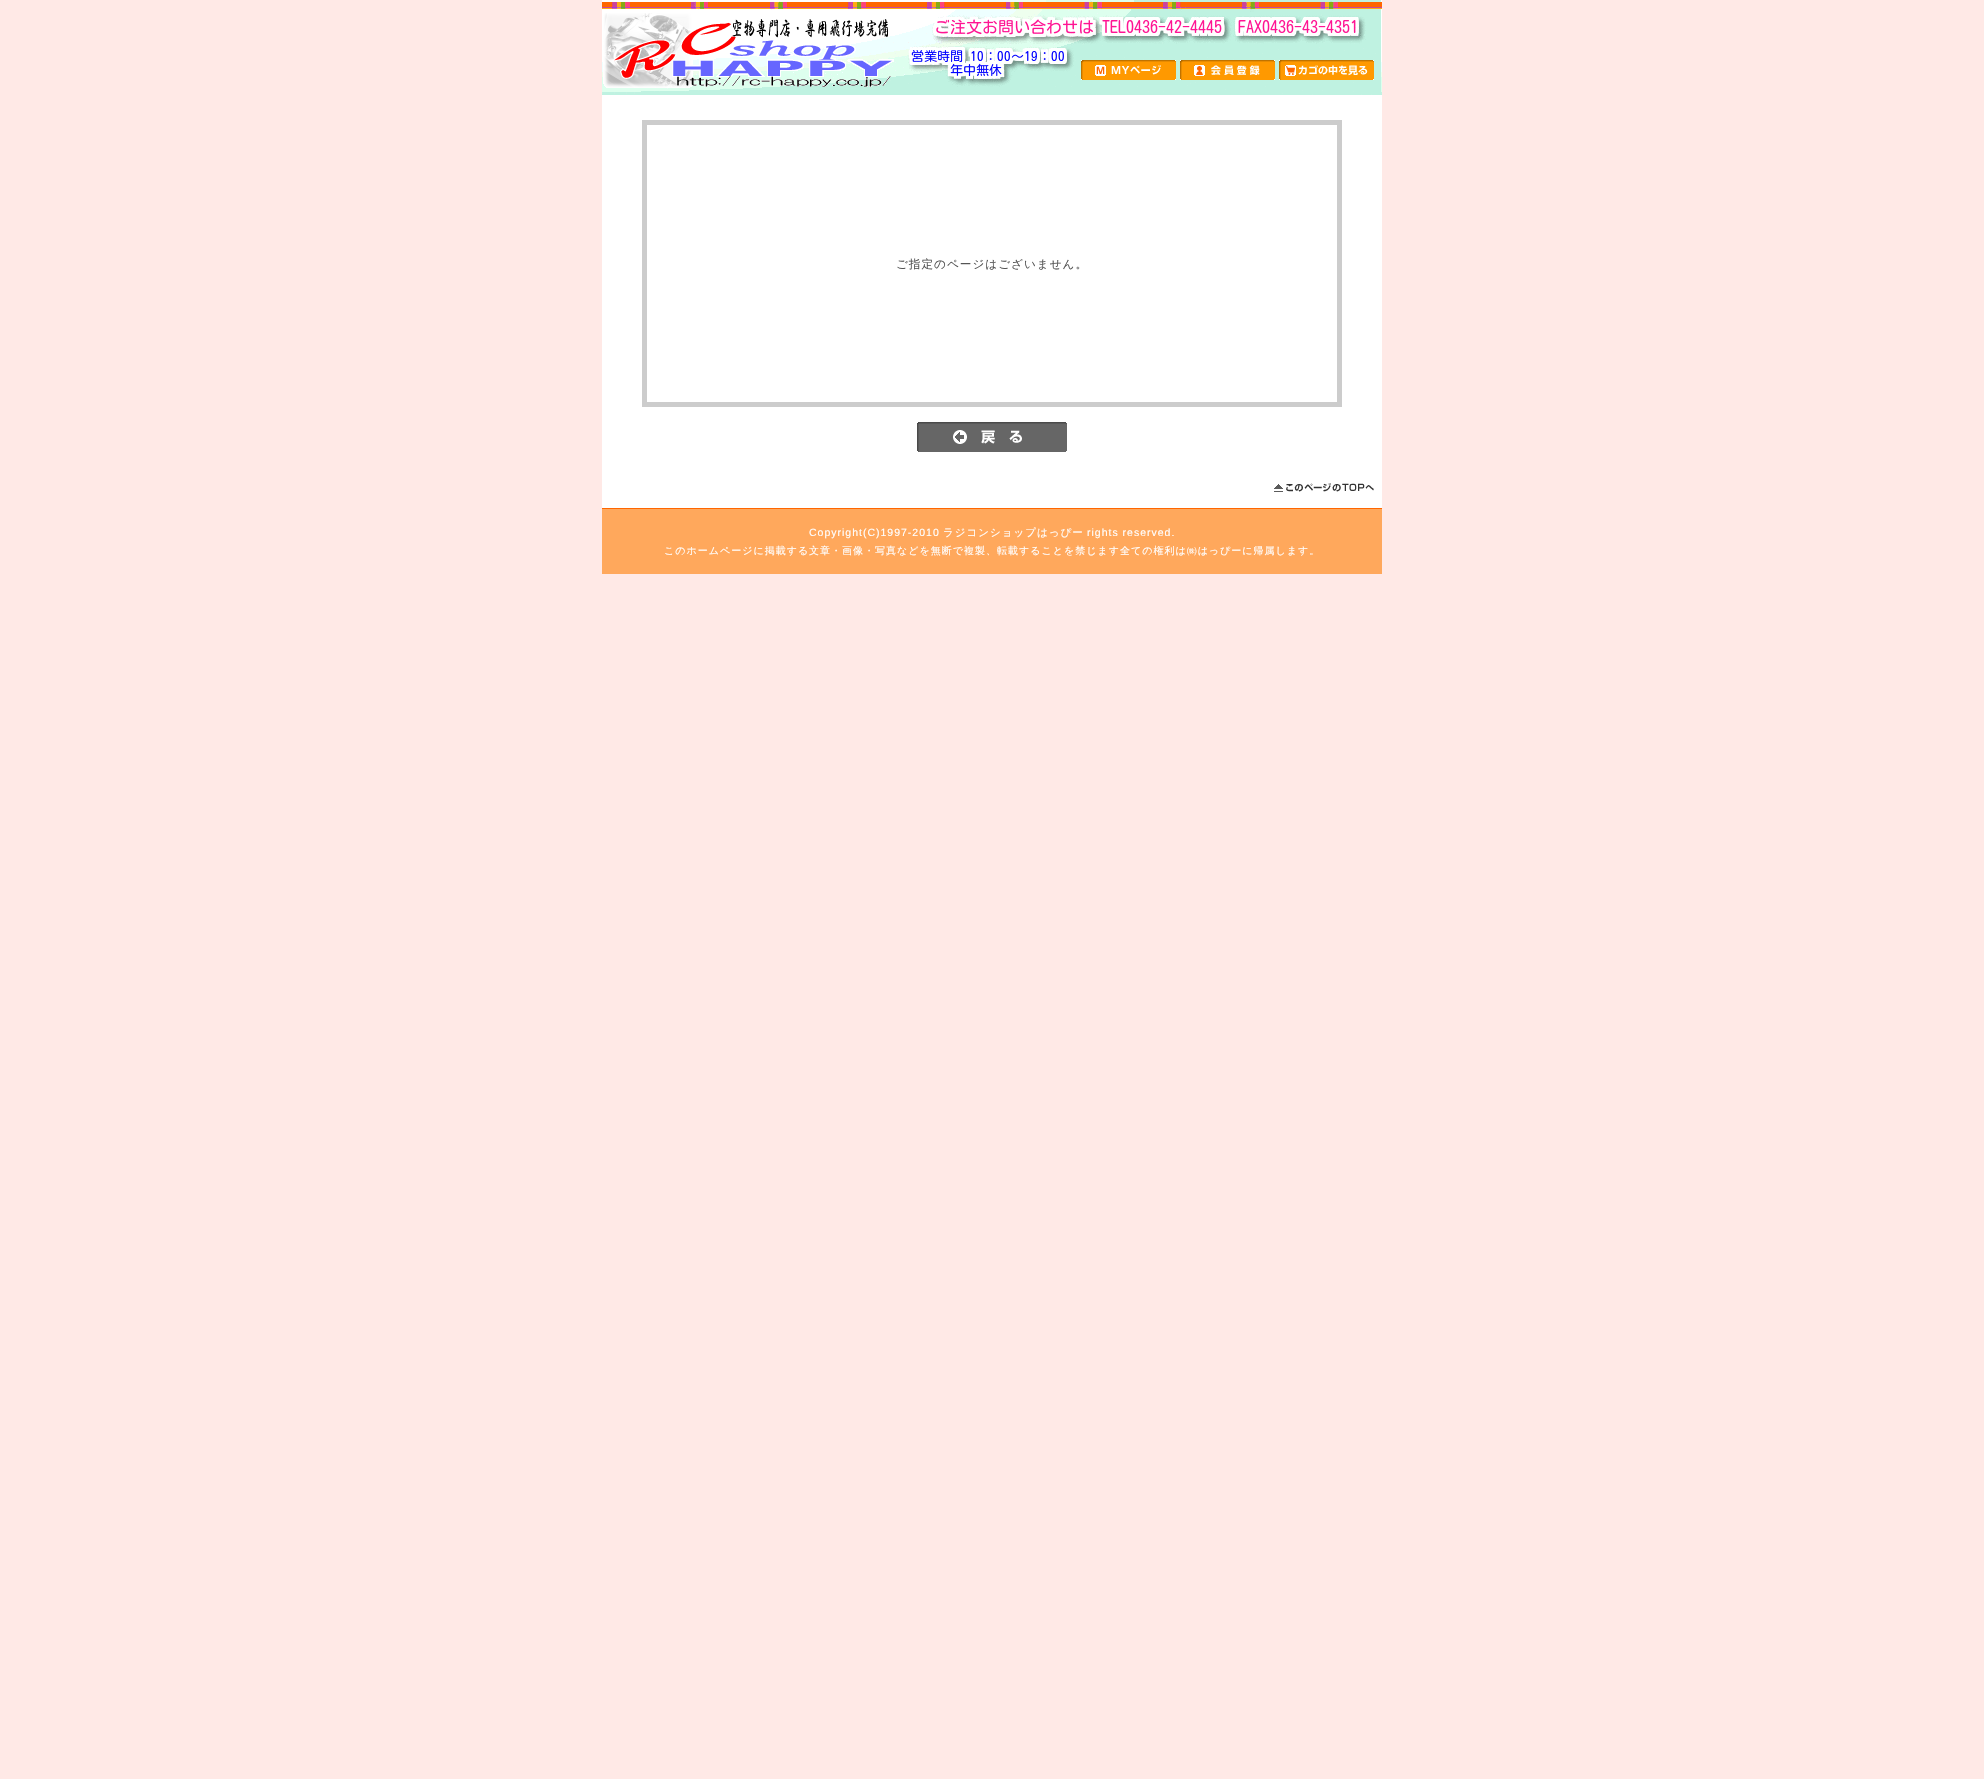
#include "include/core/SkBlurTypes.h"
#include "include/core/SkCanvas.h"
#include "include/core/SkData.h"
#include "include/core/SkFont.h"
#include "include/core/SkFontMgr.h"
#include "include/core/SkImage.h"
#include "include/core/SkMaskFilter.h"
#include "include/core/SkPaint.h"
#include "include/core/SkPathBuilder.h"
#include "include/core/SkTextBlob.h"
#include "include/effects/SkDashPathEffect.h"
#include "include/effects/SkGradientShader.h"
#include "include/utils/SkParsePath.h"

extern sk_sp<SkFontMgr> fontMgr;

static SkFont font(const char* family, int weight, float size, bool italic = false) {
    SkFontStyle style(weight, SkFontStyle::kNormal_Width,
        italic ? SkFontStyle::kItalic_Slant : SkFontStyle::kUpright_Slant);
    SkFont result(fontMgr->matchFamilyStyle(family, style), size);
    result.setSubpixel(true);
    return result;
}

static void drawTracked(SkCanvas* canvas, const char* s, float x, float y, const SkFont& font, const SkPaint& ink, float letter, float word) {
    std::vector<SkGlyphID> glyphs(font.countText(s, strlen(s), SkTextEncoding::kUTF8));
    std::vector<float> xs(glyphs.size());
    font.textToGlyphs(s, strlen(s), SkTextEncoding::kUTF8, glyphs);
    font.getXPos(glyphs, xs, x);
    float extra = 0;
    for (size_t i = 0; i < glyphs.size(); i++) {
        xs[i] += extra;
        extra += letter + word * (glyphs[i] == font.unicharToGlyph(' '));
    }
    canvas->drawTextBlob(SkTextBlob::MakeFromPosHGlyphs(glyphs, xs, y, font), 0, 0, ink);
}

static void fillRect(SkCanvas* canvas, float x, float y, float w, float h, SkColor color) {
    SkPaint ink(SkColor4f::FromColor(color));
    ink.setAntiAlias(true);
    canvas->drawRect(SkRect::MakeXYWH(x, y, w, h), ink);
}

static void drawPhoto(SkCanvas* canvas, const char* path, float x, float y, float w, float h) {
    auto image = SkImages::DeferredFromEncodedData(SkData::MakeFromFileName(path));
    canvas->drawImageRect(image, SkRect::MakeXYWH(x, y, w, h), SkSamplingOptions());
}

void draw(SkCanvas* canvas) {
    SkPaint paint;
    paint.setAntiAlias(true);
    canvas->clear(0xFFFFE9E6);
    drawPhoto(canvas, "assets/img1.png", 602, 0, 780, 95);
    drawPhoto(canvas, "assets/img2.png", 603, 13, 291, 75);
    drawPhoto(canvas, "assets/img3.png", 1081, 60, 95, 20);
    drawPhoto(canvas, "assets/img4.png", 1180, 60, 95, 20);
    drawPhoto(canvas, "assets/img5.png", 1279, 60, 95, 20);
    fillRect(canvas, 602, 95, 780, 413, 0xFFFFFFFF);
    paint.setStroke(true);
    paint.setStrokeWidth(5);
    paint.setColor(0xFFCCCCCC);
    canvas->drawRect(SkRect::MakeXYWH(644.5f, 122.5f, 695, 282), paint);
    SkFont font1 = font("WenQuanYi Zen Hei", 500, 11.6f);
    paint.setStroke(false);
    paint.setColor(0xFF555555);
    drawTracked(canvas, "ご指定のページはございません。", 896, 268, font1, paint, 1, 0);
    drawPhoto(canvas, "assets/img6.png", 917, 422, 150, 30);
    drawPhoto(canvas, "assets/img7.png", 1274, 483, 100, 9);
    fillRect(canvas, 602, 509, 780, 65, 0xFFFFA85C);
    fillRect(canvas, 602, 508, 780, 1, 0xFFFF6600);
    SkFont font2 = font("Liberation Sans", 400, 10.5f);
    paint.setColor(0xFFFFFFFF);
    drawTracked(canvas, "Copyright(C)1997-2010", 809, 536, font2, paint, 1, 0);
    SkFont font3 = font("WenQuanYi Zen Hei", 500, 10.5f);
    drawTracked(canvas, "ラジコンショップはっぴー", 943, 536, font3, paint, 1, 0);
    drawTracked(canvas, "rights reserved.", 1087, 536, font2, paint, 1, 0);
    SkFont font4 = font("WenQuanYi Zen Hei", 500, 10);
    drawTracked(canvas, "このホームページに掲載する文章・画像・写真などを無断で複製、転載することを禁じます全ての権利は㈱はっぴーに帰属します。", 664, 554, font4, paint, 1, 0);
}
